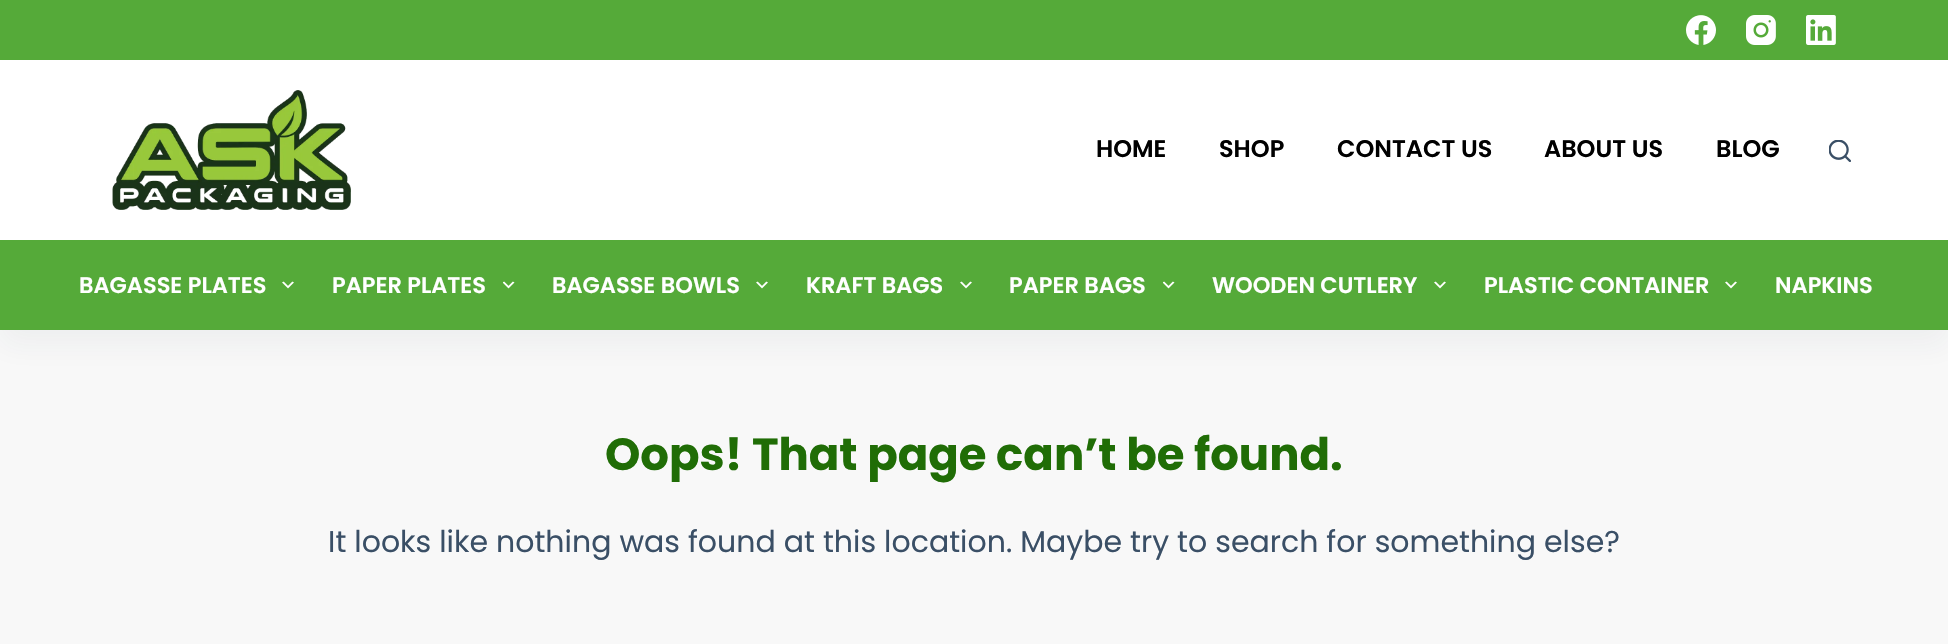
#include "include/core/SkBlurTypes.h"
#include "include/core/SkCanvas.h"
#include "include/core/SkData.h"
#include "include/core/SkFont.h"
#include "include/core/SkFontMgr.h"
#include "include/core/SkImage.h"
#include "include/core/SkMaskFilter.h"
#include "include/core/SkPaint.h"
#include "include/core/SkPathBuilder.h"
#include "include/core/SkTextBlob.h"
#include "include/effects/SkDashPathEffect.h"
#include "include/effects/SkGradientShader.h"
#include "include/utils/SkParsePath.h"

extern sk_sp<SkFontMgr> fontMgr;

static SkFont font(const char* family, int weight, float size, bool italic = false) {
    SkFontStyle style(weight, SkFontStyle::kNormal_Width,
        italic ? SkFontStyle::kItalic_Slant : SkFontStyle::kUpright_Slant);
    SkFont result(fontMgr->matchFamilyStyle(family, style), size);
    result.setSubpixel(true);
    return result;
}

static void drawLabel(SkCanvas* canvas, const char* s, float x, float y, const SkFont& font, SkColor color) {
    SkPaint ink(SkColor4f::FromColor(color));
    ink.setAntiAlias(true);
    canvas->drawString(s, x, y, font, ink);
}

static void fillRect(SkCanvas* canvas, float x, float y, float w, float h, SkColor color) {
    SkPaint ink(SkColor4f::FromColor(color));
    ink.setAntiAlias(true);
    canvas->drawRect(SkRect::MakeXYWH(x, y, w, h), ink);
}

static void drawPhoto(SkCanvas* canvas, const char* path, float x, float y, float w, float h) {
    auto image = SkImages::DeferredFromEncodedData(SkData::MakeFromFileName(path));
    canvas->drawImageRect(image, SkRect::MakeXYWH(x, y, w, h), SkSamplingOptions());
}

void draw(SkCanvas* canvas) {
    SkPaint paint;
    paint.setAntiAlias(true);
    canvas->clear(0xFFF8F8F8);
    fillRect(canvas, 0, 0, 1948, 60, 0xFF55AA39);
    drawPhoto(canvas, "assets/img1.png", 1686, 15, 30, 30);
    drawPhoto(canvas, "assets/img2.png", 1746, 15, 30, 30);
    drawPhoto(canvas, "assets/img3.png", 1806, 15, 30, 30);
    paint.setColor(0x0D2C3E50);
    paint.setMaskFilter(SkMaskFilter::MakeBlur(kNormal_SkBlurStyle, 15));
    canvas->drawRect(SkRect::MakeXYWH(0, 255, 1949, 90), paint);
    paint.setMaskFilter(nullptr);
    fillRect(canvas, 0, 60, 1948, 180, 0xFFFFFFFF);
    drawPhoto(canvas, "assets/img4.png", 112, 90, 239, 120);
    SkFont font1 = font("Poppins", 600, 24);
    drawLabel(canvas, "HOME", 1096, 157, font1, 0xFF000000);
    drawLabel(canvas, "SHOP", 1219, 157, font1, 0xFF000000);
    drawLabel(canvas, "CONTACT US", 1337, 157, font1, 0xFF000000);
    drawLabel(canvas, "ABOUT US", 1544, 157, font1, 0xFF000000);
    drawLabel(canvas, "BLOG", 1716, 157, font1, 0xFF000000);
    drawPhoto(canvas, "assets/img5.png", 1829, 140, 22, 22);
    fillRect(canvas, 0, 240, 1948, 90, 0xFF55AA39);
    SkFont font2 = font("Poppins", 600, 22.5f);
    drawLabel(canvas, "BAGASSE PLATES", 79, 293, font2, 0xFFFFFFFF);
    drawPhoto(canvas, "assets/img6.png", 282, 281, 12, 8);
    drawLabel(canvas, "PAPER PLATES", 332, 293, font2, 0xFFFFFFFF);
    drawPhoto(canvas, "assets/img7.png", 503, 281, 12, 8);
    drawLabel(canvas, "BAGASSE BOWLS", 552, 293, font2, 0xFFFFFFFF);
    drawPhoto(canvas, "assets/img6.png", 756, 281, 12, 8);
    drawLabel(canvas, "KRAFT BAGS", 806, 293, font2, 0xFFFFFFFF);
    drawPhoto(canvas, "assets/img6.png", 960, 281, 12, 8);
    drawLabel(canvas, "PAPER BAGS", 1009, 293, font2, 0xFFFFFFFF);
    drawPhoto(canvas, "assets/img7.png", 1163, 281, 12, 8);
    drawLabel(canvas, "WOODEN CUTLERY", 1212, 293, font2, 0xFFFFFFFF);
    drawPhoto(canvas, "assets/img6.png", 1434, 281, 12, 8);
    drawLabel(canvas, "PLASTIC CONTAINER", 1484, 293, font2, 0xFFFFFFFF);
    drawPhoto(canvas, "assets/img6.png", 1725, 281, 12, 8);
    drawLabel(canvas, "NAPKINS", 1775, 293, font2, 0xFFFFFFFF);
    SkFont font3 = font("Poppins", 700, 45);
    drawLabel(canvas, "Oops! That page can’t be found.", 605, 470, font3, 0xFF206D06);
    SkFont font4 = font("Poppins", 400, 30);
    drawLabel(canvas, "It looks like nothing was found at this location. Maybe try to search for something else?", 328, 552, font4, 0xFF3A4F66);
}
